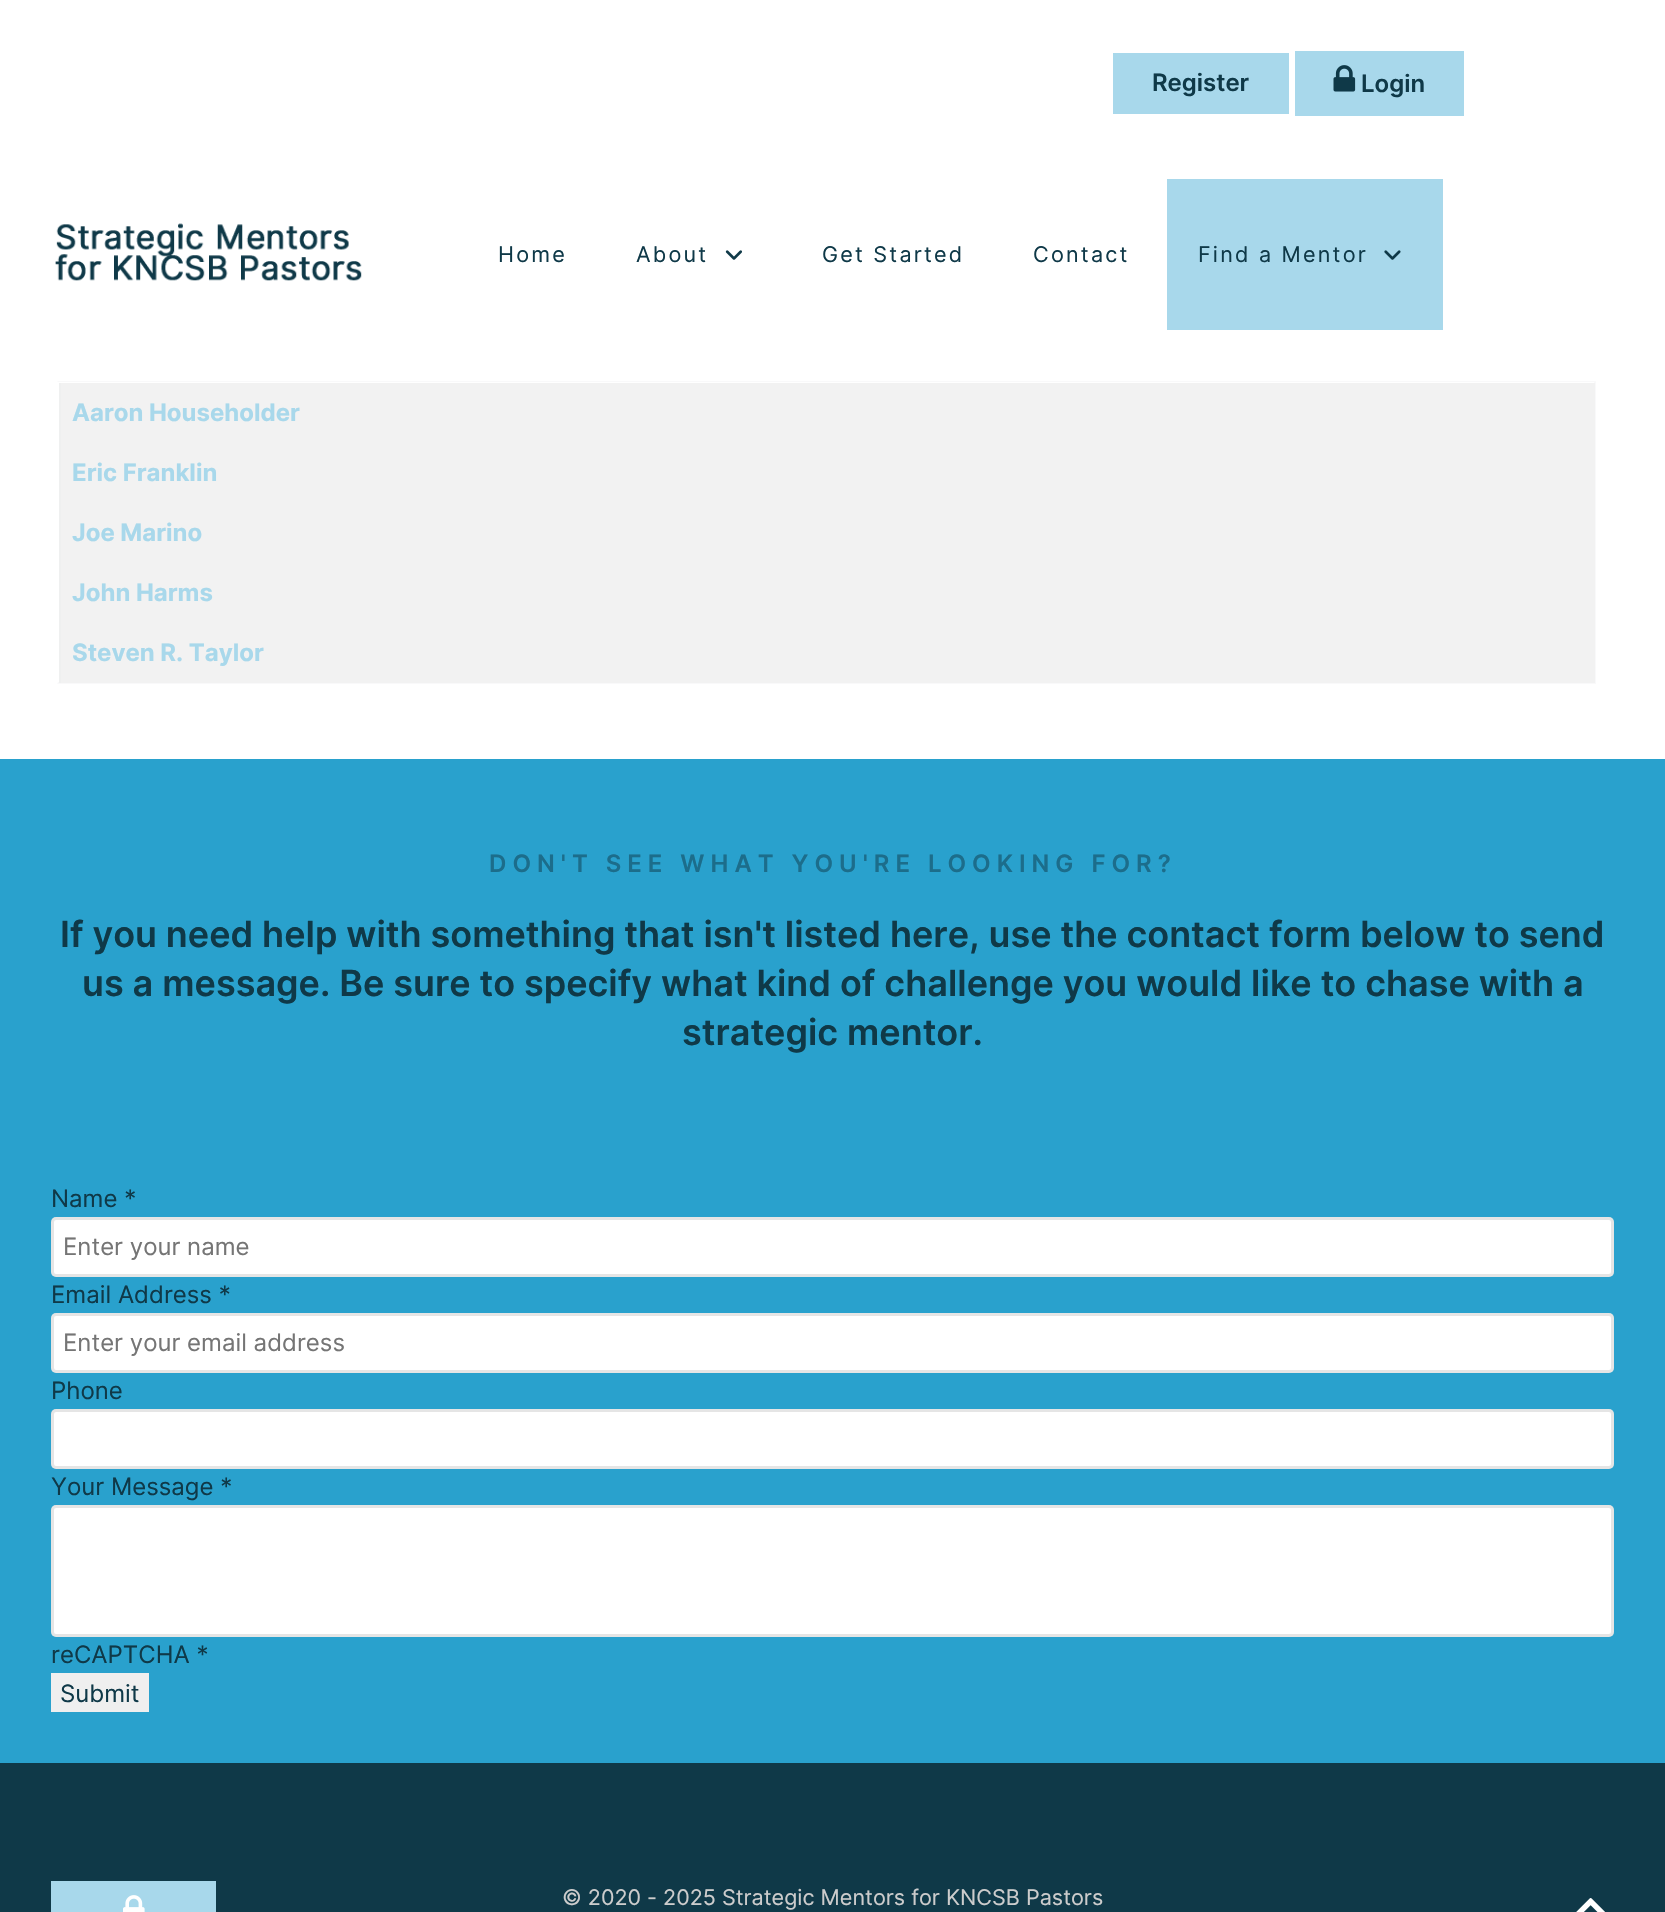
#include "include/core/SkBlurTypes.h"
#include "include/core/SkCanvas.h"
#include "include/core/SkData.h"
#include "include/core/SkFont.h"
#include "include/core/SkFontMgr.h"
#include "include/core/SkImage.h"
#include "include/core/SkMaskFilter.h"
#include "include/core/SkPaint.h"
#include "include/core/SkPathBuilder.h"
#include "include/core/SkTextBlob.h"
#include "include/effects/SkDashPathEffect.h"
#include "include/effects/SkGradientShader.h"
#include "include/utils/SkParsePath.h"

extern sk_sp<SkFontMgr> fontMgr;

static SkFont font(const char* family, int weight, float size, bool italic = false) {
    SkFontStyle style(weight, SkFontStyle::kNormal_Width,
        italic ? SkFontStyle::kItalic_Slant : SkFontStyle::kUpright_Slant);
    SkFont result(fontMgr->matchFamilyStyle(family, style), size);
    result.setSubpixel(true);
    return result;
}

static void drawLabel(SkCanvas* canvas, const char* s, float x, float y, const SkFont& font, SkColor color) {
    SkPaint ink(SkColor4f::FromColor(color));
    ink.setAntiAlias(true);
    canvas->drawString(s, x, y, font, ink);
}

static void drawTracked(SkCanvas* canvas, const char* s, float x, float y, const SkFont& font, const SkPaint& ink, float letter, float word) {
    std::vector<SkGlyphID> glyphs(font.countText(s, strlen(s), SkTextEncoding::kUTF8));
    std::vector<float> xs(glyphs.size());
    font.textToGlyphs(s, strlen(s), SkTextEncoding::kUTF8, glyphs);
    font.getXPos(glyphs, xs, x);
    float extra = 0;
    for (size_t i = 0; i < glyphs.size(); i++) {
        xs[i] += extra;
        extra += letter + word * (glyphs[i] == font.unicharToGlyph(' '));
    }
    canvas->drawTextBlob(SkTextBlob::MakeFromPosHGlyphs(glyphs, xs, y, font), 0, 0, ink);
}

static void fillRect(SkCanvas* canvas, float x, float y, float w, float h, SkColor color) {
    SkPaint ink(SkColor4f::FromColor(color));
    ink.setAntiAlias(true);
    canvas->drawRect(SkRect::MakeXYWH(x, y, w, h), ink);
}

static void fillRRect(SkCanvas* canvas, float x, float y, float w, float h, float radius, SkColor color) {
    SkPaint ink(SkColor4f::FromColor(color));
    ink.setAntiAlias(true);
    canvas->drawRoundRect(SkRect::MakeXYWH(x, y, w, h), radius, radius, ink);
}

static void drawPhoto(SkCanvas* canvas, const char* path, float x, float y, float w, float h) {
    auto image = SkImages::DeferredFromEncodedData(SkData::MakeFromFileName(path));
    canvas->drawImageRect(image, SkRect::MakeXYWH(x, y, w, h), SkSamplingOptions());
}

static SkPath parsePath(const char* data, bool evenOdd = false) {
    SkPath result = *SkParsePath::FromSVGString(data);
    if (evenOdd) result.setFillType(SkPathFillType::kEvenOdd);
    return result;
}

void draw(SkCanvas* canvas) {
    SkPaint paint;
    paint.setAntiAlias(true);
    canvas->clear(0xFFFFFFFF);
    fillRect(canvas, 1113, 53, 176, 61, 0xFFA8D8EB);
    SkFont font1 = font("Inter", 600, 24);
    drawLabel(canvas, "Register", 1152, 91, font1, 0xFF0F3948);
    fillRect(canvas, 1295, 51, 169, 65, 0xFFA8D8EB);
    drawPhoto(canvas, "assets/img1.png", 1333, 65, 23, 27);
    drawLabel(canvas, "Login", 1361, 92, font1, 0xFF0F3948);
    drawPhoto(canvas, "assets/img2.png", 55, 223, 307, 58);
    SkFont font2 = font("Inter", 400, 21.6f);
    paint.setColor(0xFF0F3948);
    drawTracked(canvas, "Home", 498, 262, font2, paint, 2.2f, 0);
    drawTracked(canvas, "About", 636, 262, font2, paint, 2.2f, 0);
    drawPhoto(canvas, "assets/img3.png", 725, 250, 17, 10);
    drawTracked(canvas, "Get Started", 822, 262, font2, paint, 2.2f, 0);
    drawTracked(canvas, "Contact", 1033, 262, font2, paint, 2.2f, 0);
    fillRect(canvas, 1167, 179, 276, 151, 0xFFA8D8EB);
    drawTracked(canvas, "Find a Mentor", 1198, 262, font2, paint, 2.2f, 0);
    drawPhoto(canvas, "assets/img4.png", 1384, 250, 17, 10);
    paint.setColor(0xFFF9F9FA);
    canvas->drawPath(parsePath("M57 381H1596L1594 382H58Z"), paint);
    canvas->drawPath(parsePath("M1596 381V684L1594 682V382Z"), paint);
    paint.setColor(0x40E7E8EA);
    canvas->drawPath(parsePath("M1596 684H57L58 682H1594Z"), paint);
    fillRect(canvas, 61, 383, 1534, 300, 0xFFF2F2F2);
    fillRect(canvas, 59, 383, 2, 300, 0xFFEFF0F0);
    SkFont font3 = font("Inter", 700, 24);
    drawLabel(canvas, "Aaron Householder", 72, 421, font3, 0xFFA8D8EB);
    drawLabel(canvas, "Eric Franklin", 72, 481, font3, 0xFFA8D8EB);
    drawLabel(canvas, "Joe Marino", 72, 541, font3, 0xFFA8D8EB);
    drawLabel(canvas, "John Harms", 72, 601, font3, 0xFFA8D8EB);
    drawLabel(canvas, "Steven R. Taylor", 72, 661, font3, 0xFFA8D8EB);
    fillRect(canvas, 0, 759, 1665, 1004, 0xFF29A1CD);
    paint.setColor(0xFF1C6D8B);
    drawTracked(canvas, "DON'T SEE WHAT YOU'RE LOOKING FOR?", 489, 872, font1, paint, 6, 0);
    SkFont font4 = font("Inter", 600, 36);
    drawLabel(canvas, "If you need help with something that isn't listed here, use the contact form below to send", 60, 947, font4, 0xFF0F3948);
    drawLabel(canvas, "us a message. Be sure to specify what kind of challenge you would like to chase with a", 82, 996, font4, 0xFF0F3948);
    drawLabel(canvas, "strategic mentor.", 682, 1045, font4, 0xFF0F3948);
    SkFont font5 = font("Inter", 400, 24);
    drawLabel(canvas, "Name *", 51, 1207, font5, 0xFF0F3948);
    fillRRect(canvas, 51, 1217, 1563, 60, 5, 0xFFFFFFFF);
    paint.setStroke(true);
    paint.setStrokeWidth(3);
    paint.setColor(0x1A000000);
    canvas->drawRoundRect(SkRect::MakeXYWH(52.5f, 1218.5f, 1560, 57), 3.5f, 3.5f, paint);
    drawLabel(canvas, "Enter your name", 63, 1255, font5, 0xFF757575);
    drawLabel(canvas, "Email Address *", 51, 1303, font5, 0xFF0F3948);
    fillRRect(canvas, 51, 1313, 1563, 60, 5, 0xFFFFFFFF);
    canvas->drawRoundRect(SkRect::MakeXYWH(52.5f, 1314.5f, 1560, 57), 3.5f, 3.5f, paint);
    drawLabel(canvas, "Enter your email address", 63, 1351, font5, 0xFF757575);
    drawLabel(canvas, "Phone", 51, 1399, font5, 0xFF0F3948);
    fillRRect(canvas, 51, 1409, 1563, 60, 5, 0xFFFFFFFF);
    canvas->drawRoundRect(SkRect::MakeXYWH(52.5f, 1410.5f, 1560, 57), 3.5f, 3.5f, paint);
    drawLabel(canvas, "Your Message *", 51, 1495, font5, 0xFF0F3948);
    fillRRect(canvas, 51, 1505, 1563, 132, 5, 0xFFFFFFFF);
    canvas->drawRoundRect(SkRect::MakeXYWH(52.5f, 1506.5f, 1560, 129), 3.5f, 3.5f, paint);
    drawLabel(canvas, "reCAPTCHA *", 51, 1663, font5, 0xFF0F3948);
    fillRect(canvas, 51, 1673, 98, 39, 0xFFEFEFEF);
    drawLabel(canvas, "Submit", 60, 1702, font5, 0xFF0F3948);
    fillRect(canvas, 0, 1763, 1665, 149, 0xFF0F3948);
    fillRect(canvas, 51, 1881, 165, 31, 0xFFA8D8EB);
    drawPhoto(canvas, "assets/img5.png", 123, 1895, 22, 17);
    drawLabel(canvas, "© 2020 - 2025 Strategic Mentors for KNCSB Pastors", 562, 1905, font2, 0xFFCCCCCC);
    drawPhoto(canvas, "assets/img6.png", 1576, 1898, 29, 14);
}
